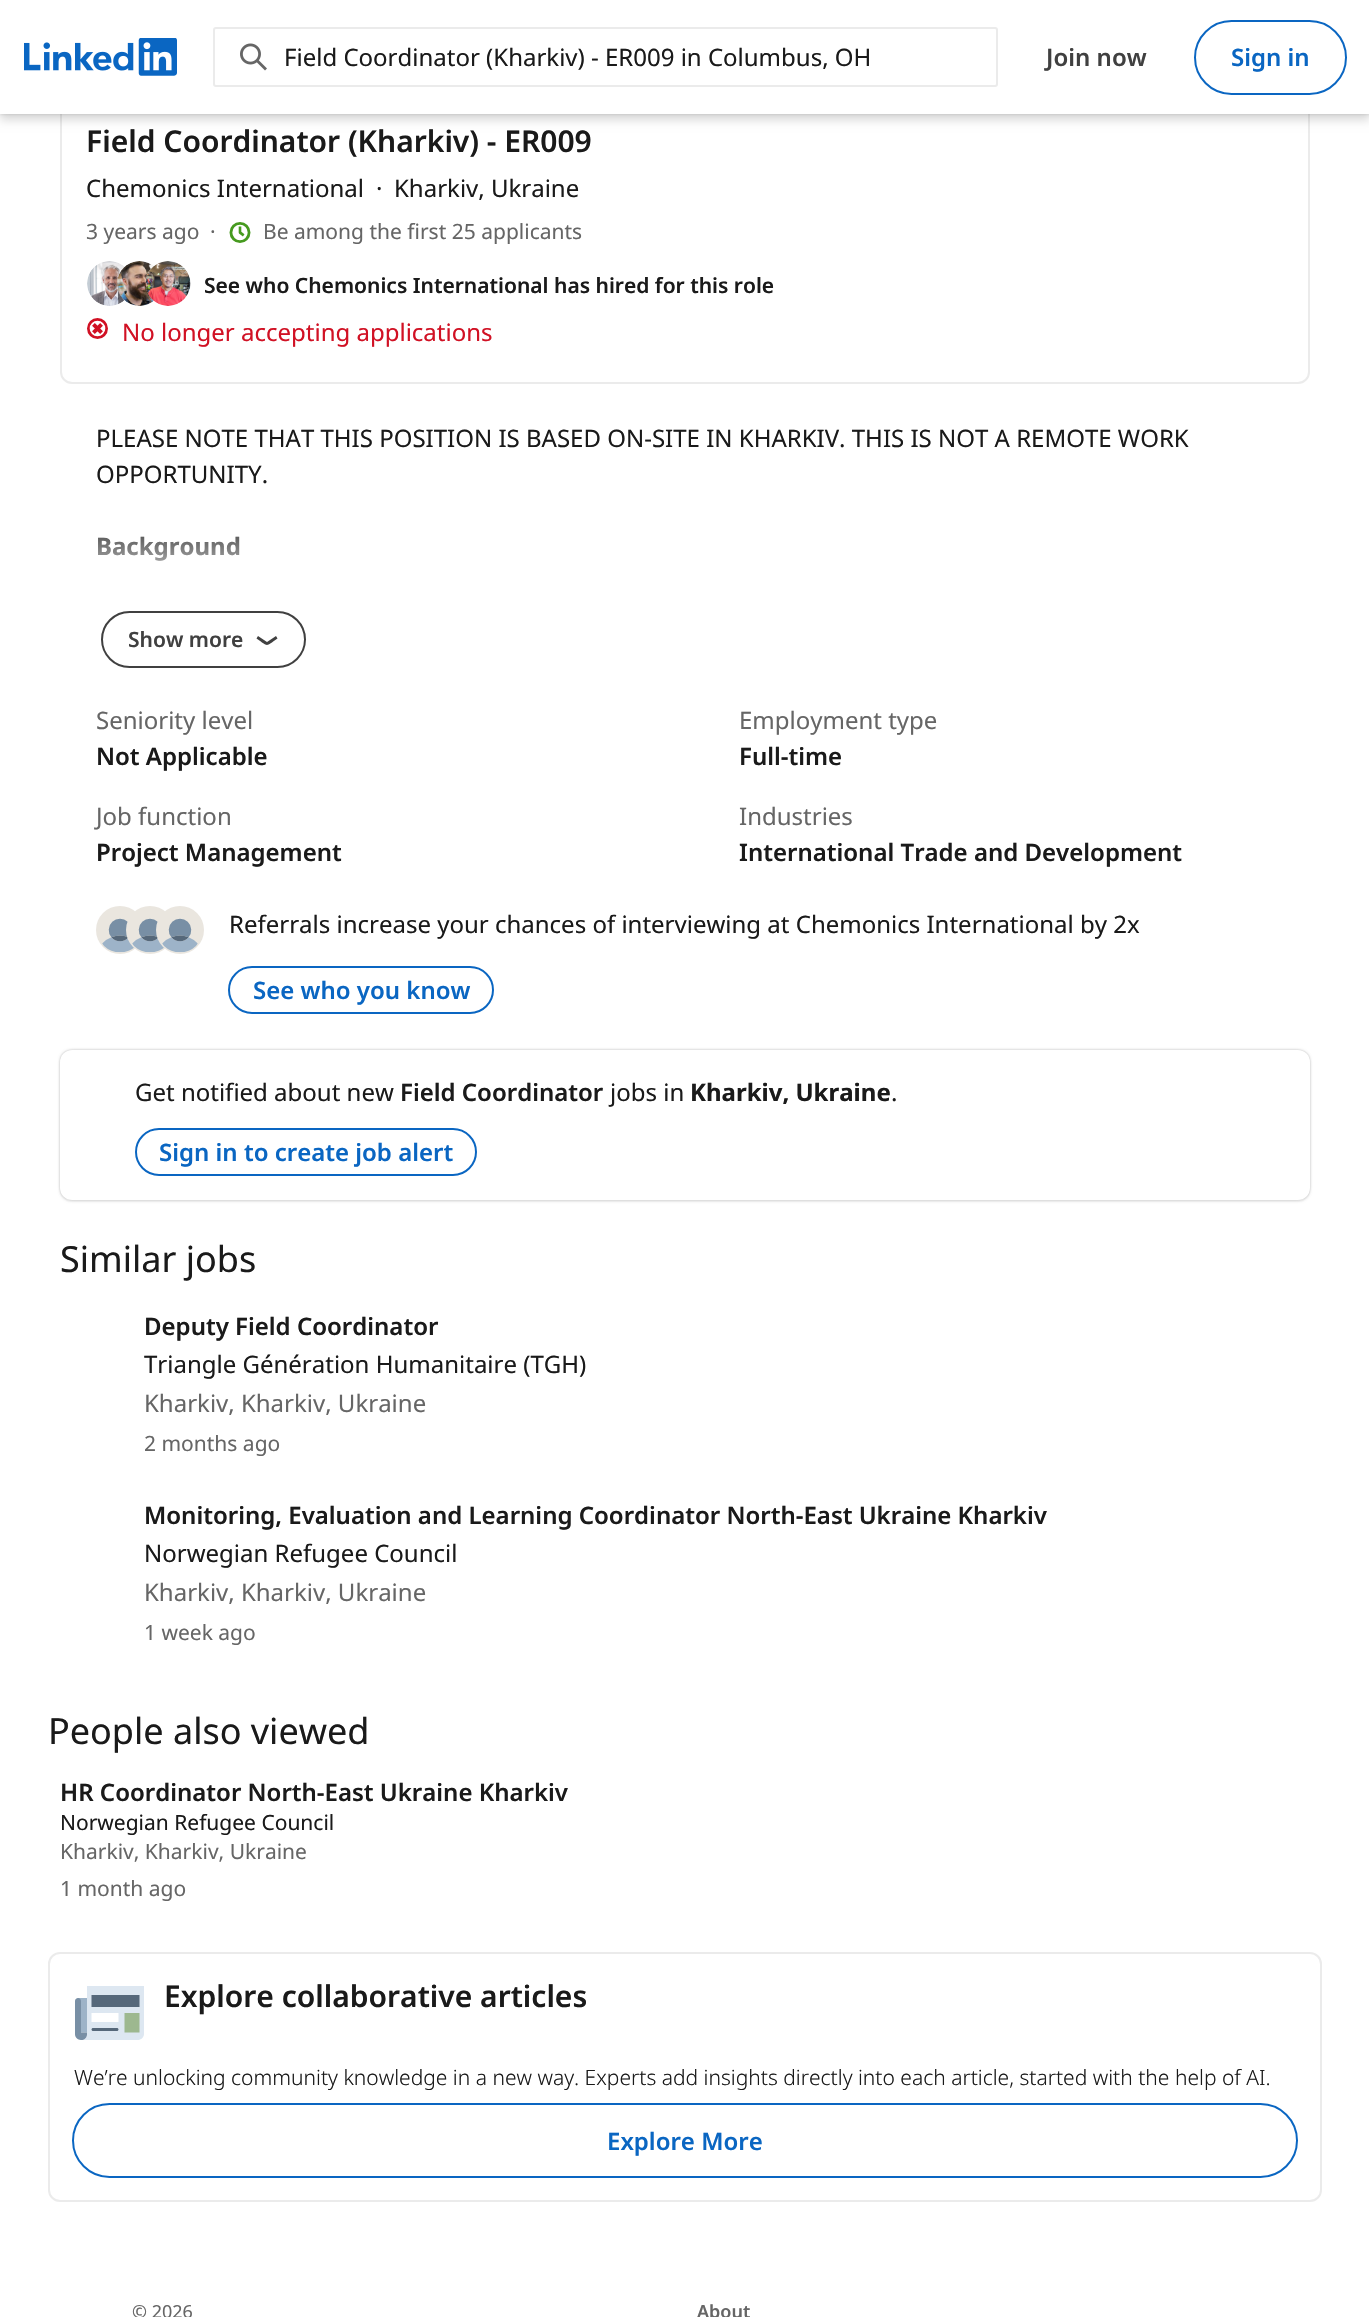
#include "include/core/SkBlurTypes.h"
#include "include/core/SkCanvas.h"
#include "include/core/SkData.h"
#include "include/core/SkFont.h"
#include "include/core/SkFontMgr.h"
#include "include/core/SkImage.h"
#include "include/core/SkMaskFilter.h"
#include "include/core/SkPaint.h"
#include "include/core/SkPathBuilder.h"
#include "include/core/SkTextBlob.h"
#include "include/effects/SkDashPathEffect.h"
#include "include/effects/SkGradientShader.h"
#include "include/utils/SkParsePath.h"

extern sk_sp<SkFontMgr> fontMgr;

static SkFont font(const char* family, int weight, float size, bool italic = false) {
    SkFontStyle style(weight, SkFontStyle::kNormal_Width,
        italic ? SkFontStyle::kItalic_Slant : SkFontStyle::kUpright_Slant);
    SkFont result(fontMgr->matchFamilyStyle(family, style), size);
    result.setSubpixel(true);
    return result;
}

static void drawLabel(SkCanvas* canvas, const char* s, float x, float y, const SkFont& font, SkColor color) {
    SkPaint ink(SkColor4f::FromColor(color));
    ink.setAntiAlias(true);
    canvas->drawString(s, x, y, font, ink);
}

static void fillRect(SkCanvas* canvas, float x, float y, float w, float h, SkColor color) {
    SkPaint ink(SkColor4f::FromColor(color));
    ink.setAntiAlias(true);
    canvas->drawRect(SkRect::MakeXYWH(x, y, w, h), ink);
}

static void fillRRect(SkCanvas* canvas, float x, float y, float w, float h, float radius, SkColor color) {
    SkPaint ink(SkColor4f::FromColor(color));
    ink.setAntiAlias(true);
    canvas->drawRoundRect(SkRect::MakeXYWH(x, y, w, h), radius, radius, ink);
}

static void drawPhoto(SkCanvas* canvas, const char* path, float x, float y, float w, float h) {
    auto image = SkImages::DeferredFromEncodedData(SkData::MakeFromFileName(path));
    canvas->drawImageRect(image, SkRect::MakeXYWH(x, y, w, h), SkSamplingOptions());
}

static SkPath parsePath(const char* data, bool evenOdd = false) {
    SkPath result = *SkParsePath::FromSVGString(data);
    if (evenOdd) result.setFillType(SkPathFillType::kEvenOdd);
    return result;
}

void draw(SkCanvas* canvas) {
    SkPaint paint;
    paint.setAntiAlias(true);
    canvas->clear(0xFFFFFFFF);
    paint.setStroke(true);
    paint.setStrokeWidth(2);
    paint.setColor(0xFFEBEBEB);
    canvas->drawRoundRect(SkRect::MakeXYWH(61, -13, 1248, 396), 11, 11, paint);
    paint.setStroke(false);
    paint.setColor(0x26000000);
    paint.setMaskFilter(SkMaskFilter::MakeBlur(kNormal_SkBlurStyle, 1.5f));
    canvas->drawRect(SkRect::MakeXYWH(0, 0, 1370, 114), paint);
    paint.setMaskFilter(nullptr);
    paint.setMaskFilter(SkMaskFilter::MakeBlur(kNormal_SkBlurStyle, 4.5f));
    canvas->drawRect(SkRect::MakeXYWH(0, 6, 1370, 114), paint);
    paint.setMaskFilter(nullptr);
    fillRect(canvas, 0, 0, 1369, 114, 0xFFFFFFFF);
    drawPhoto(canvas, "assets/img1.png", 24, 38, 153, 38);
    paint.setStroke(true);
    paint.setColor(0xFFEBEBEB);
    canvas->drawRoundRect(SkRect::MakeXYWH(214, 28, 783, 58), 2, 2, paint);
    drawPhoto(canvas, "assets/img2.png", 240, 43, 27, 28);
    SkFont font1 = font("Noto Sans", 400, 24);
    drawLabel(canvas, "Field Coordinator (Kharkiv) - ER009 in Columbus, OH", 284, 66, font1, 0xFF1A1A1A);
    SkFont font2 = font("Noto Sans", 600, 24);
    drawLabel(canvas, "Join now", 1046, 66, font2, 0xFF404040);
    paint.setColor(0xFF0A66C2);
    canvas->drawRoundRect(SkRect::MakeXYWH(1195, 21, 151, 73), 36.5f, 36.5f, paint);
    drawLabel(canvas, "Sign in", 1231, 66, font2, 0xFF0A66C2);
    SkFont font3 = font("Noto Sans", 600, 30);
    drawLabel(canvas, "Field Coordinator (Kharkiv) - ER009", 86, 152, font3, 0xFF1A1A1A);
    drawLabel(canvas, "Chemonics International", 86, 197, font1, 0xFF1A1A1A);
    drawLabel(canvas, "·", 376, 197, font1, 0xFF1A1A1A);
    drawLabel(canvas, "Kharkiv, Ukraine", 394, 197, font1, 0xFF1A1A1A);
    SkFont font4 = font("Noto Sans", 400, 21);
    drawLabel(canvas, "3 years ago", 86, 239, font4, 0xFF666666);
    drawLabel(canvas, "·", 210, 239, font4, 0xFF666666);
    drawPhoto(canvas, "assets/img3.png", 229, 222, 22, 21);
    drawLabel(canvas, "Be among the first 25 applicants", 263, 239, font4, 0xFF666666);
    drawPhoto(canvas, "assets/img4.png", 87, 261, 38, 45);
    drawPhoto(canvas, "assets/img5.png", 117, 261, 37, 45);
    drawPhoto(canvas, "assets/img6.png", 145, 261, 46, 45);
    SkFont font5 = font("Noto Sans", 600, 21);
    drawLabel(canvas, "See who Chemonics International has hired for this role", 204, 293, font5, 0xFF1A1A1A);
    drawPhoto(canvas, "assets/img7.png", 87, 318, 21, 21);
    drawLabel(canvas, "No longer accepting applications", 122, 341, font1, 0xFFD11124);
    drawLabel(canvas, "PLEASE NOTE THAT THIS POSITION IS BASED ON-SITE IN KHARKIV. THIS IS NOT A REMOTE WORK", 96, 447, font1, 0xFF1A1A1A);
    drawLabel(canvas, "OPPORTUNITY.", 96, 483, font1, 0xFF1A1A1A);
    SkFont font6 = font("Noto Sans", 700, 24);
    drawLabel(canvas, "Background", 96, 555, font6, 0xFF1A1A1A);
    paint.setStroke(false);
    {
        const SkColor colors[] = {0xFFFFFFFF, 0x00FFFFFF};
        const float stops[] = {0, 1};
        const SkPoint ends[] = {{703, 600}, {703, 510}};
        paint.setShader(SkGradientShader::MakeLinear(ends, colors, stops, 2, SkTileMode::kClamp));
        paint.setAlpha(255);
    }
    canvas->drawRect(SkRect::MakeXYWH(98, 536, 142, 25), paint);
    paint.setStroke(true);
    paint.setShader(nullptr);
    paint.setColor(0xFF404040);
    canvas->drawRoundRect(SkRect::MakeXYWH(102, 612, 203, 55), 27.5f, 27.5f, paint);
    drawLabel(canvas, "Show more", 128, 647, font5, 0xFF404040);
    paint.setStroke(false);
    canvas->drawPath(parsePath("M267 642L276 636L277.5 638.5C265 647 269 647 256.5 638.5L258 636Z"), paint);
    drawLabel(canvas, "Seniority level", 96, 729, font1, 0xFF666666);
    drawLabel(canvas, "Not Applicable", 96, 765, font2, 0xFF1A1A1A);
    drawLabel(canvas, "Employment type", 739, 729, font1, 0xFF666666);
    drawLabel(canvas, "Full-time", 739, 765, font2, 0xFF1A1A1A);
    drawLabel(canvas, "Job function", 96, 825, font1, 0xFF666666);
    drawLabel(canvas, "Project Management", 96, 861, font2, 0xFF1A1A1A);
    drawLabel(canvas, "Industries", 739, 825, font1, 0xFF666666);
    drawLabel(canvas, "International Trade and Development", 739, 861, font2, 0xFF1A1A1A);
    paint.setColor(0xFFEAE6DF);
    canvas->drawCircle(120, 930, 24, paint);
    drawPhoto(canvas, "assets/img8.png", 102, 918, 33, 35);
    canvas->drawCircle(150, 930, 24, paint);
    drawPhoto(canvas, "assets/img9.png", 132, 918, 33, 35);
    canvas->drawCircle(180, 930, 24, paint);
    drawPhoto(canvas, "assets/img10.png", 162, 918, 36, 35);
    drawLabel(canvas, "Referrals increase your chances of interviewing at Chemonics International by 2x", 229, 933, font1, 0xFF1A1A1A);
    paint.setStroke(true);
    paint.setColor(0xFF0A66C2);
    canvas->drawRoundRect(SkRect::MakeXYWH(229, 967, 264, 46), 23, 23, paint);
    drawLabel(canvas, "See who you know", 253, 999, font2, 0xFF0A66C2);
    paint.setStroke(false);
    paint.setColor(0x14000000);
    paint.setMaskFilter(SkMaskFilter::MakeBlur(kNormal_SkBlurStyle, 1));
    canvas->drawRoundRect(SkRect::MakeXYWH(60, 1052, 1250, 150), 12, 12, paint);
    paint.setMaskFilter(nullptr);
    paint.setMaskFilter(SkMaskFilter::MakeBlur(kNormal_SkBlurStyle, 1));
    canvas->drawRoundRect(SkRect::MakeXYWH(59, 1050, 1249, 150), 12, 12, paint);
    paint.setMaskFilter(nullptr);
    paint.setMaskFilter(SkMaskFilter::MakeBlur(kNormal_SkBlurStyle, 1));
    canvas->drawRoundRect(SkRect::MakeXYWH(62, 1050, 1249, 150), 12, 12, paint);
    paint.setMaskFilter(nullptr);
    paint.setMaskFilter(SkMaskFilter::MakeBlur(kNormal_SkBlurStyle, 1));
    canvas->drawRoundRect(SkRect::MakeXYWH(60, 1049, 1250, 150), 12, 12, paint);
    paint.setMaskFilter(nullptr);
    fillRRect(canvas, 60, 1050, 1250, 150, 12, 0xFFFFFFFF);
    drawLabel(canvas, "Get notified about new", 135, 1101, font1, 0xFF1A1A1A);
    drawLabel(canvas, "Field Coordinator", 400, 1101, font2, 0xFF1A1A1A);
    drawLabel(canvas, "jobs in", 610, 1101, font1, 0xFF1A1A1A);
    drawLabel(canvas, "Kharkiv, Ukraine", 690, 1101, font6, 0xFF1A1A1A);
    drawLabel(canvas, ".", 891, 1101, font1, 0xFF1A1A1A);
    paint.setStroke(true);
    paint.setColor(0xFF0A66C2);
    canvas->drawRoundRect(SkRect::MakeXYWH(136, 1129, 340, 46), 23, 23, paint);
    drawLabel(canvas, "Sign in to create job alert", 159, 1161, font2, 0xFF0A66C2);
    SkFont font7 = font("Noto Sans", 400, 36);
    drawLabel(canvas, "Similar jobs", 60, 1272, font7, 0xFF1A1A1A);
    drawLabel(canvas, "Deputy Field Coordinator", 144, 1335, font2, 0xFF1A1A1A);
    drawLabel(canvas, "Triangle Génération Humanitaire (TGH)", 144, 1373, font1, 0xFF1A1A1A);
    drawLabel(canvas, "Kharkiv, Kharkiv, Ukraine", 144, 1412, font1, 0xFF666666);
    drawLabel(canvas, "2 months ago", 144, 1451, font4, 0xFF666666);
    drawLabel(canvas, "Monitoring, Evaluation and Learning Coordinator North-East Ukraine Kharkiv", 144, 1524, font2, 0xFF1A1A1A);
    drawLabel(canvas, "Norwegian Refugee Council", 144, 1562, font1, 0xFF1A1A1A);
    drawLabel(canvas, "Kharkiv, Kharkiv, Ukraine", 144, 1601, font1, 0xFF666666);
    drawLabel(canvas, "1 week ago", 144, 1640, font4, 0xFF666666);
    drawLabel(canvas, "People also viewed", 48, 1744, font7, 0xFF1A1A1A);
    drawLabel(canvas, "HR Coordinator North-East Ukraine Kharkiv", 60, 1801, font2, 0xFF1A1A1A);
    drawLabel(canvas, "Norwegian Refugee Council", 60, 1830, font4, 0xFF1A1A1A);
    drawLabel(canvas, "Kharkiv, Kharkiv, Ukraine", 60, 1859, font4, 0xFF666666);
    drawLabel(canvas, "1 month ago", 60, 1896, font4, 0xFF666666);
    paint.setColor(0xFFEBEBEB);
    canvas->drawRoundRect(SkRect::MakeXYWH(49, 1953, 1272, 248), 11, 11, paint);
    drawPhoto(canvas, "assets/img11.png", 75, 1986, 69, 54);
    drawLabel(canvas, "Explore collaborative articles", 164, 2007, font3, 0xFF1A1A1A);
    SkFont font8 = font("Noto Sans", 300, 21);
    drawLabel(canvas, "We’re unlocking community knowledge in a new way. Experts add insights directly into each article, started with the help of AI.", 74, 2085, font8, 0xFF1A1A1A);
    paint.setColor(0xFF0A66C2);
    canvas->drawRoundRect(SkRect::MakeXYWH(73, 2104, 1224, 73), 36.5f, 36.5f, paint);
    drawLabel(canvas, "Explore More", 607, 2150, font2, 0xFF0A66C2);
    SkFont font9 = font("Noto Sans", 400, 18);
    drawLabel(canvas, "© 2026", 132, 2318, font9, 0xFF666666);
    SkFont font10 = font("Noto Sans", 600, 18);
    drawLabel(canvas, "About", 697, 2318, font10, 0xFF666666);
}
